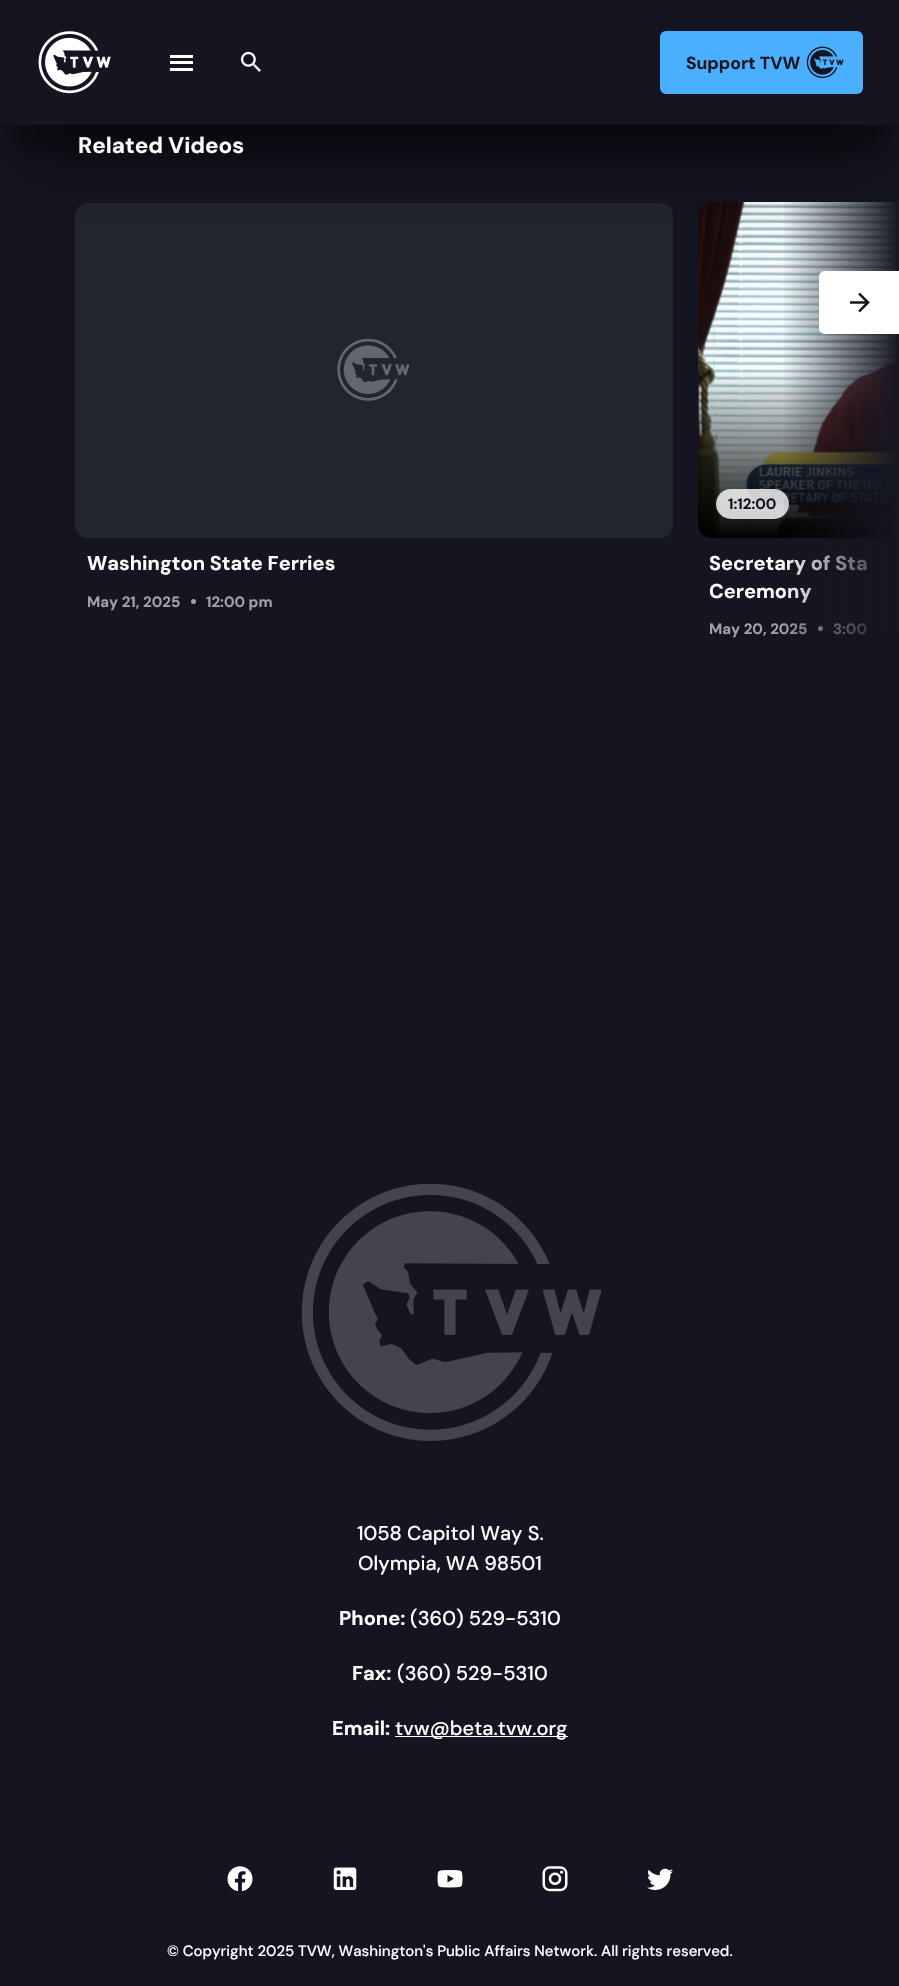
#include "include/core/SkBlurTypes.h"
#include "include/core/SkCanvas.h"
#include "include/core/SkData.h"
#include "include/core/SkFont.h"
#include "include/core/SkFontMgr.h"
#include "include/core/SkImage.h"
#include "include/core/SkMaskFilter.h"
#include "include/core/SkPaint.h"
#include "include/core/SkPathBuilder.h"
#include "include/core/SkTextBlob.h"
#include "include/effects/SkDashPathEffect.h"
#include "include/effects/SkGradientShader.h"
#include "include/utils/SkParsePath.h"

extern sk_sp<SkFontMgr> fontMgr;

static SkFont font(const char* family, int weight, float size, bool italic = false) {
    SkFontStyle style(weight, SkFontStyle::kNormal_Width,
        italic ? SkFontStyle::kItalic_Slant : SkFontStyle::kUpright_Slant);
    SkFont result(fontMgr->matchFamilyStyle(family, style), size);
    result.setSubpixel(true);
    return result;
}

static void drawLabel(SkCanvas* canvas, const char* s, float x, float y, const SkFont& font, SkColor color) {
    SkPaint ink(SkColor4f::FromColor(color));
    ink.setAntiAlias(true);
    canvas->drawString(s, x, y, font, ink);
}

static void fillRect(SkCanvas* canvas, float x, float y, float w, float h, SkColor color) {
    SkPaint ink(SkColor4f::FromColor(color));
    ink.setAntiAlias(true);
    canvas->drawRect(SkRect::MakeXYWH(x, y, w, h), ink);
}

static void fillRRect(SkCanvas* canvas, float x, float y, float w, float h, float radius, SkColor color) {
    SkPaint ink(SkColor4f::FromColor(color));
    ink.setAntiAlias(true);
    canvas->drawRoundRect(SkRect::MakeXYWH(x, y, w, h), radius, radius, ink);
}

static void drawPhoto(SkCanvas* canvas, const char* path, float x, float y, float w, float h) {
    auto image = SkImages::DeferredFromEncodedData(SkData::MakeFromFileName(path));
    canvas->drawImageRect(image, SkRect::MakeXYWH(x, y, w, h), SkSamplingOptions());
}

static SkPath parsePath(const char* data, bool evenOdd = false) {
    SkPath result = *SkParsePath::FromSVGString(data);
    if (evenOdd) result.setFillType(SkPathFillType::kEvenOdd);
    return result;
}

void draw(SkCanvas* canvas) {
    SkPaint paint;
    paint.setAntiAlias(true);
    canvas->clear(0xFF141520);
    paint.setColor(0x4D000000);
    paint.setMaskFilter(SkMaskFilter::MakeBlur(kNormal_SkBlurStyle, 12.5f));
    canvas->drawRect(SkRect::MakeXYWH(13, 50, 875, 100), paint);
    paint.setMaskFilter(nullptr);
    drawPhoto(canvas, "assets/img6.png", 698, 202, 201, 335);
    {
        const SkColor colors[] = {0x00000000, 0xFF000000};
        const float stops[] = {0, 1};
        const SkPoint ends[] = {{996, 370}, {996, 538}};
        paint.setShader(SkGradientShader::MakeLinear(ends, colors, stops, 2, SkTileMode::kClamp));
        paint.setAlpha(255);
    }
    canvas->drawPath(parsePath("M698 370H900V538H711C704 538 698 532 698 525Z"), paint);
    fillRRect(canvas, 716, 489, 73, 30, 15, 0xCCFFFFFF);
    SkFont font1 = font("DM Sans", 700, 20);
    drawLabel(canvas, "Secretary of Sta", 709, 570, font1, 0xFFFFFFFF);
    drawLabel(canvas, "Ceremony", 709, 598, font1, 0xFFFFFFFF);
    SkFont font2 = font("DM Sans", 700, 15);
    drawLabel(canvas, "May 20, 2025", 709, 634, font2, 0xFFA1A1A6);
    paint.setShader(nullptr);
    paint.setColor(0xFFA1A1A6);
    canvas->drawCircle(820.5f, 628.5f, 2.5f, paint);
    drawLabel(canvas, "3:00", 833, 634, font2, 0xFFA1A1A6);
    {
        const SkColor colors[] = {0x00141520, 0xFF141520};
        const float stops[] = {0, 1};
        const SkPoint ends[] = {{781, 428}, {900, 428}};
        paint.setShader(SkGradientShader::MakeLinear(ends, colors, stops, 2, SkTileMode::kClamp));
        paint.setAlpha(255);
    }
    canvas->drawRect(SkRect::MakeXYWH(784, 202, 115, 433), paint);
    fillRRect(canvas, 75, 203, 598, 335, 13, 0xFF22242F);
    paint.setShader(nullptr);
    paint.setColor(0x80000000);
    paint.setMaskFilter(SkMaskFilter::MakeBlur(kNormal_SkBlurStyle, 37.5f));
    canvas->drawRect(SkRect::MakeXYWH(19, 69, 862, 87), paint);
    paint.setMaskFilter(nullptr);
    fillRect(canvas, 0, 28, 899, 97, 0xFF141520);
    drawPhoto(canvas, "assets/img1.png", 38, 31, 73, 63);
    fillRect(canvas, 170, 55, 23, 3, 0xFFFFFFFF);
    fillRect(canvas, 170, 61, 23, 3, 0xFFFFFFFF);
    fillRect(canvas, 170, 68, 23, 3, 0xFFFFFFFF);
    drawPhoto(canvas, "assets/img2.png", 240, 51, 21, 21);
    fillRRect(canvas, 660, 31, 203, 63, 6, 0xFF4BAFFF);
    SkFont font3 = font("DM Sans", 700, 17.5f);
    drawLabel(canvas, "Support TVW", 686, 69, font3, 0xFF141520);
    drawPhoto(canvas, "assets/img3.png", 806, 46, 38, 33);
    SkFont font4 = font("DM Sans", 700, 22.5f);
    drawLabel(canvas, "Related Videos", 78, 153, font4, 0xFFFFFFFF);
    paint.setColor(0xFFFFFFFF);
    canvas->drawPath(parsePath("M825 271H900V334H825C821.5 334 819 331.5 819 328V277C819 273.5 821.5 271 825 271Z"), paint);
    drawPhoto(canvas, "assets/img4.png", 850, 292, 20, 21);
    drawPhoto(canvas, "assets/img5.png", 337, 339, 73, 62);
    drawLabel(canvas, "Washington State Ferries", 87, 570, font1, 0xFFFFFFFF);
    drawLabel(canvas, "May 21, 2025", 87, 607, font2, 0xFFA1A1A6);
    paint.setColor(0xFFA1A1A6);
    canvas->drawCircle(193.5f, 601.5f, 2.5f, paint);
    drawLabel(canvas, "12:00 pm", 206, 607, font2, 0xFFA1A1A6);
    drawLabel(canvas, "1:12:00", 728, 509, font2, 0xFF141520);
    drawPhoto(canvas, "assets/img7.png", 301, 1184, 301, 257);
    SkFont font5 = font("DM Sans", 500, 20);
    drawLabel(canvas, "1058 Capitol Way S.", 357, 1540, font5, 0xFFFFFFFF);
    drawLabel(canvas, "Olympia, WA 98501", 358, 1570, font5, 0xFFFFFFFF);
    drawLabel(canvas, "Phone:", 339, 1625, font1, 0xFFFFFFFF);
    drawLabel(canvas, "(360) 529-5310", 410, 1625, font5, 0xFFFFFFFF);
    drawLabel(canvas, "Fax:", 352, 1680, font1, 0xFFFFFFFF);
    drawLabel(canvas, "(360) 529-5310", 397, 1680, font5, 0xFFFFFFFF);
    drawLabel(canvas, "Email:", 332, 1735, font1, 0xFFFFFFFF);
    fillRect(canvas, 395, 1736, 173, 1, 0xFFFFFFFF);
    drawLabel(canvas, "tvw@beta.tvw.org", 395, 1735, font5, 0xFFFFFFFF);
    drawPhoto(canvas, "assets/img8.png", 227, 1866, 26, 26);
    drawPhoto(canvas, "assets/img9.png", 333, 1867, 24, 23);
    drawPhoto(canvas, "assets/img10.png", 437, 1870, 26, 18);
    drawPhoto(canvas, "assets/img11.png", 542, 1866, 26, 26);
    drawPhoto(canvas, "assets/img12.png", 647, 1868, 26, 22);
    SkFont font6 = font("DM Sans", 500, 15);
    drawLabel(canvas, "© Copyright 2025 TVW, Washington's Public Affairs Network. All rights reserved.", 167, 1956, font6, 0xFFFFFFFF);
}
